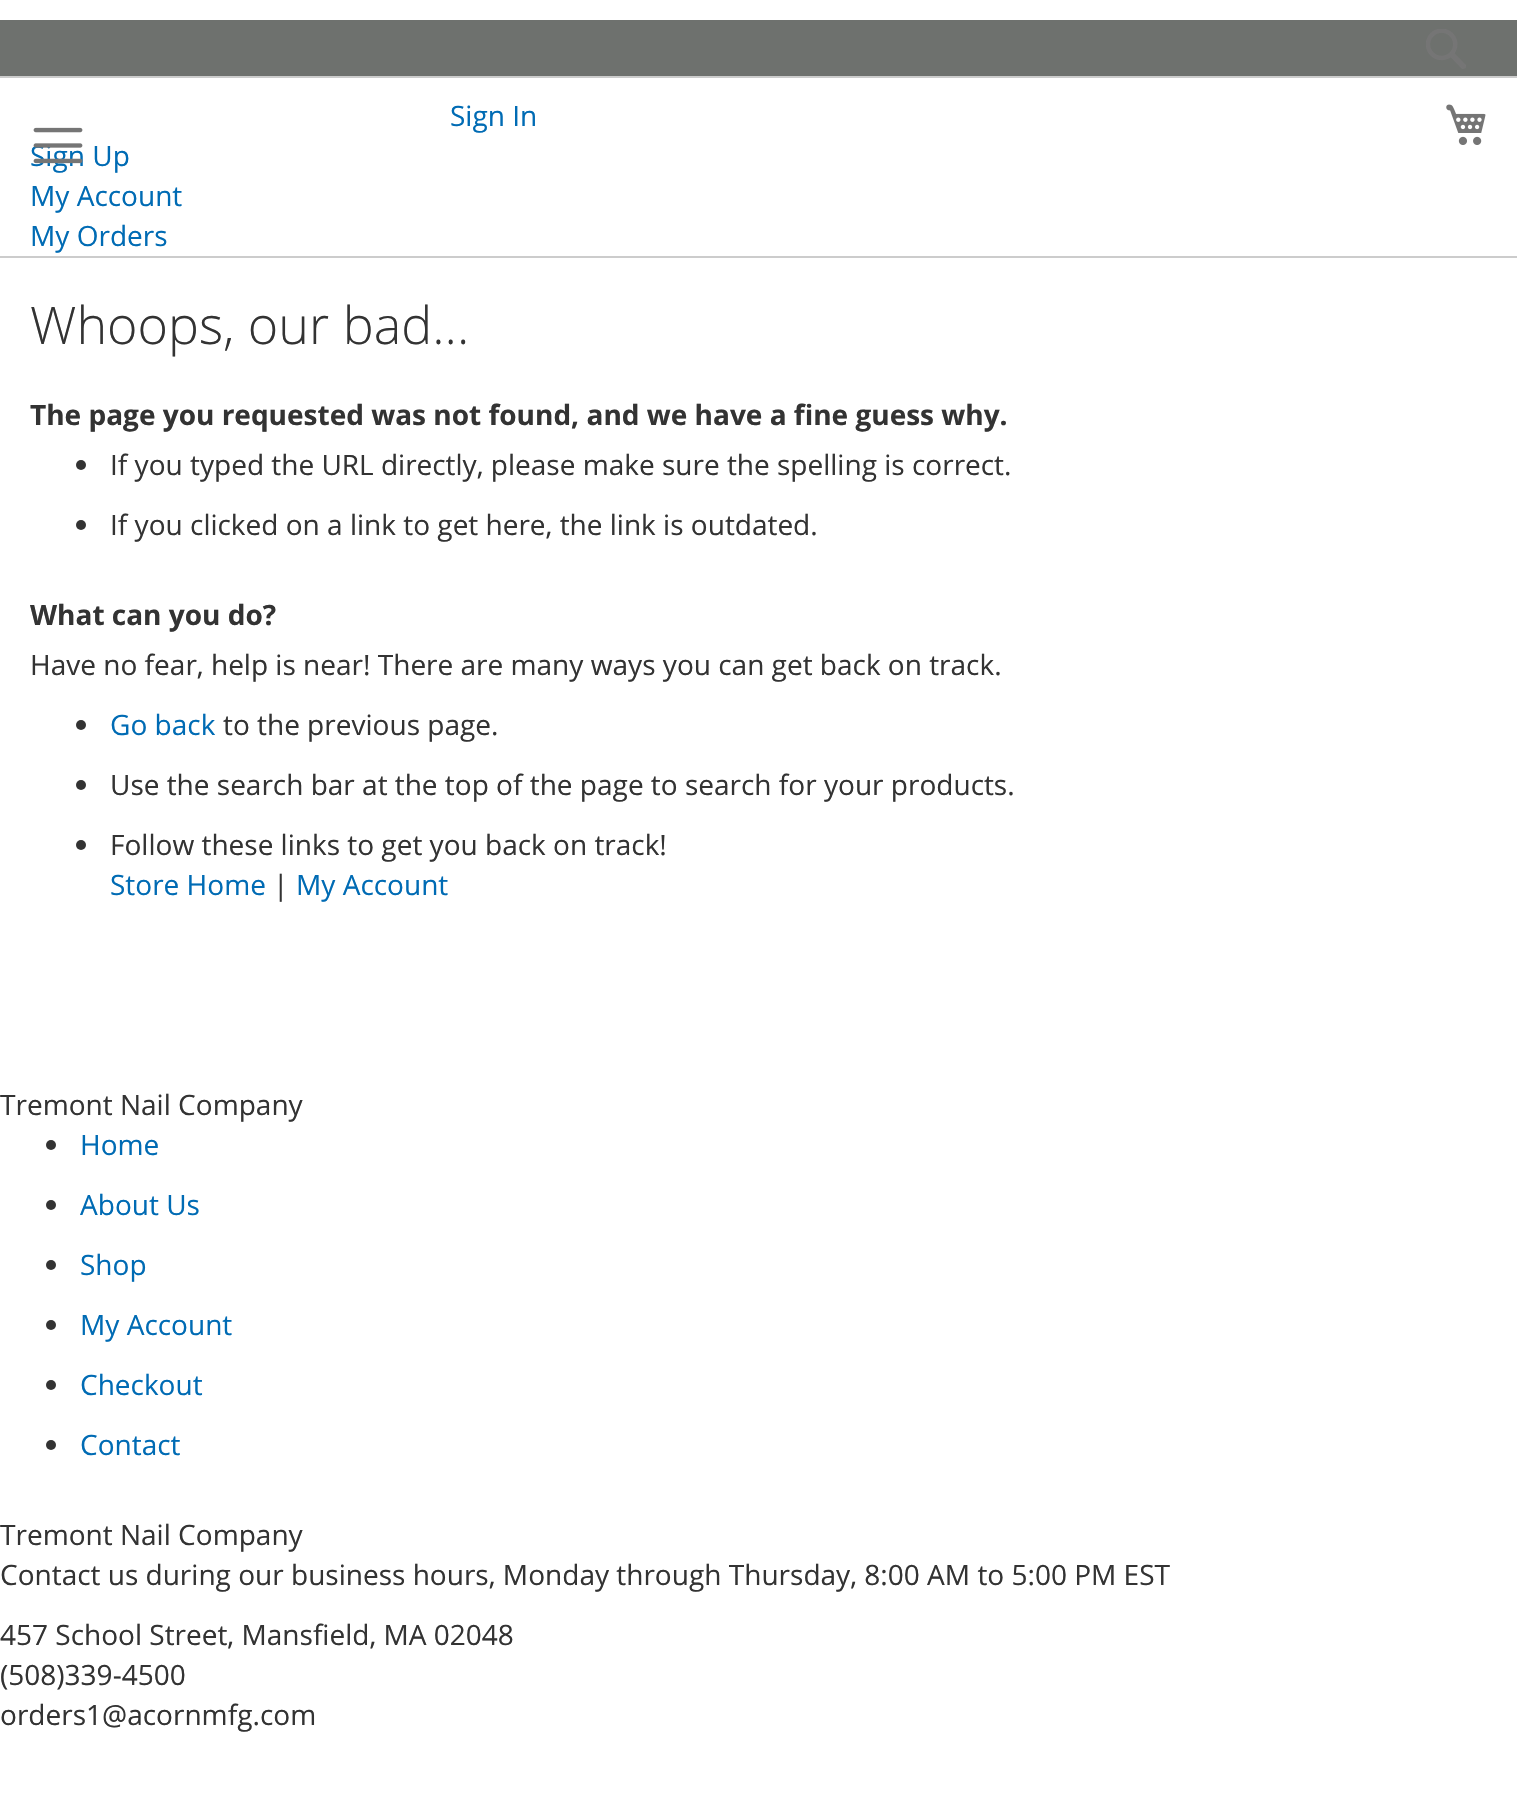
#include "include/core/SkBlurTypes.h"
#include "include/core/SkCanvas.h"
#include "include/core/SkData.h"
#include "include/core/SkFont.h"
#include "include/core/SkFontMgr.h"
#include "include/core/SkImage.h"
#include "include/core/SkMaskFilter.h"
#include "include/core/SkPaint.h"
#include "include/core/SkPathBuilder.h"
#include "include/core/SkTextBlob.h"
#include "include/effects/SkDashPathEffect.h"
#include "include/effects/SkGradientShader.h"
#include "include/utils/SkParsePath.h"

extern sk_sp<SkFontMgr> fontMgr;

static SkFont font(const char* family, int weight, float size, bool italic = false) {
    SkFontStyle style(weight, SkFontStyle::kNormal_Width,
        italic ? SkFontStyle::kItalic_Slant : SkFontStyle::kUpright_Slant);
    SkFont result(fontMgr->matchFamilyStyle(family, style), size);
    result.setSubpixel(true);
    return result;
}

static void drawLabel(SkCanvas* canvas, const char* s, float x, float y, const SkFont& font, SkColor color) {
    SkPaint ink(SkColor4f::FromColor(color));
    ink.setAntiAlias(true);
    canvas->drawString(s, x, y, font, ink);
}

static void fillRect(SkCanvas* canvas, float x, float y, float w, float h, SkColor color) {
    SkPaint ink(SkColor4f::FromColor(color));
    ink.setAntiAlias(true);
    canvas->drawRect(SkRect::MakeXYWH(x, y, w, h), ink);
}

static void drawPhoto(SkCanvas* canvas, const char* path, float x, float y, float w, float h) {
    auto image = SkImages::DeferredFromEncodedData(SkData::MakeFromFileName(path));
    canvas->drawImageRect(image, SkRect::MakeXYWH(x, y, w, h), SkSamplingOptions());
}

void draw(SkCanvas* canvas) {
    SkPaint paint;
    paint.setAntiAlias(true);
    canvas->clear(0xFFFFFFFF);
    fillRect(canvas, 0, 256, 1517, 2, 0xFFCCCCCC);
    fillRect(canvas, 0, 20, 1517, 56, 0xFF6E716E);
    drawPhoto(canvas, "assets/img1.png", 1426, 29, 40, 40);
    fillRect(canvas, 0, 76, 1517, 2, 0xFFCCCCCC);
    drawPhoto(canvas, "assets/img2.png", 1446, 104, 40, 41);
    SkFont font1 = font("Open Sans", 400, 28);
    drawLabel(canvas, "Sign In", 450, 126, font1, 0xFF006BB4);
    drawLabel(canvas, "Sign Up", 30, 166, font1, 0xFF006BB4);
    drawLabel(canvas, "My Account", 30, 206, font1, 0xFF006BB4);
    drawLabel(canvas, "My Orders", 30, 246, font1, 0xFF006BB4);
    drawPhoto(canvas, "assets/img3.png", 33, 127, 50, 37);
    SkFont font2 = font("Open Sans", 300, 52);
    drawLabel(canvas, "Whoops, our bad...", 30, 344, font2, 0xFF333333);
    SkFont font3 = font("Open Sans", 700, 28);
    drawLabel(canvas, "The page you requested was not found, and we have a fine guess why.", 30, 425, font3, 0xFF333333);
    paint.setColor(0xFF333333);
    canvas->drawCircle(81, 465, 5, paint);
    drawLabel(canvas, "If you typed the URL directly, please make sure the spelling is correct.", 110, 475, font1, 0xFF333333);
    canvas->drawCircle(81, 525, 5, paint);
    drawLabel(canvas, "If you clicked on a link to get here, the link is outdated.", 110, 535, font1, 0xFF333333);
    drawLabel(canvas, "What can you do?", 30, 625, font3, 0xFF333333);
    drawLabel(canvas, "Have no fear, help is near! There are many ways you can get back on track.", 30, 675, font1, 0xFF333333);
    canvas->drawCircle(81, 725, 5, paint);
    drawLabel(canvas, "Go back", 110, 735, font1, 0xFF006BB4);
    drawLabel(canvas, "to the previous page.", 223, 735, font1, 0xFF333333);
    canvas->drawCircle(81, 785, 5, paint);
    drawLabel(canvas, "Use the search bar at the top of the page to search for your products.", 110, 795, font1, 0xFF333333);
    canvas->drawCircle(81, 845, 5, paint);
    drawLabel(canvas, "Follow these links to get you back on track!", 110, 855, font1, 0xFF333333);
    drawLabel(canvas, "Store Home", 110, 895, font1, 0xFF006BB4);
    drawLabel(canvas, "|", 273, 895, font1, 0xFF333333);
    drawLabel(canvas, "My Account", 296, 895, font1, 0xFF006BB4);
    drawLabel(canvas, "Tremont Nail Company", 0, 1115, font1, 0xFF333333);
    canvas->drawCircle(51, 1145, 5, paint);
    drawLabel(canvas, "Home", 80, 1155, font1, 0xFF006BB4);
    canvas->drawCircle(51, 1205, 5, paint);
    drawLabel(canvas, "About Us", 80, 1215, font1, 0xFF006BB4);
    canvas->drawCircle(51, 1265, 5, paint);
    drawLabel(canvas, "Shop", 80, 1275, font1, 0xFF006BB4);
    canvas->drawCircle(51, 1325, 5, paint);
    drawLabel(canvas, "My Account", 80, 1335, font1, 0xFF006BB4);
    canvas->drawCircle(51, 1385, 5, paint);
    drawLabel(canvas, "Checkout", 80, 1395, font1, 0xFF006BB4);
    canvas->drawCircle(51, 1445, 5, paint);
    drawLabel(canvas, "Contact", 80, 1455, font1, 0xFF006BB4);
    drawLabel(canvas, "Tremont Nail Company", 0, 1545, font1, 0xFF333333);
    drawLabel(canvas, "Contact us during our business hours, Monday through Thursday, 8:00 AM to 5:00 PM EST", 0, 1585, font1, 0xFF333333);
    drawLabel(canvas, "457 School Street, Mansfield, MA 02048", 0, 1645, font1, 0xFF333333);
    drawLabel(canvas, "(508)339-4500", 0, 1685, font1, 0xFF333333);
    drawLabel(canvas, "orders1@acornmfg.com", 0, 1725, font1, 0xFF333333);
}
